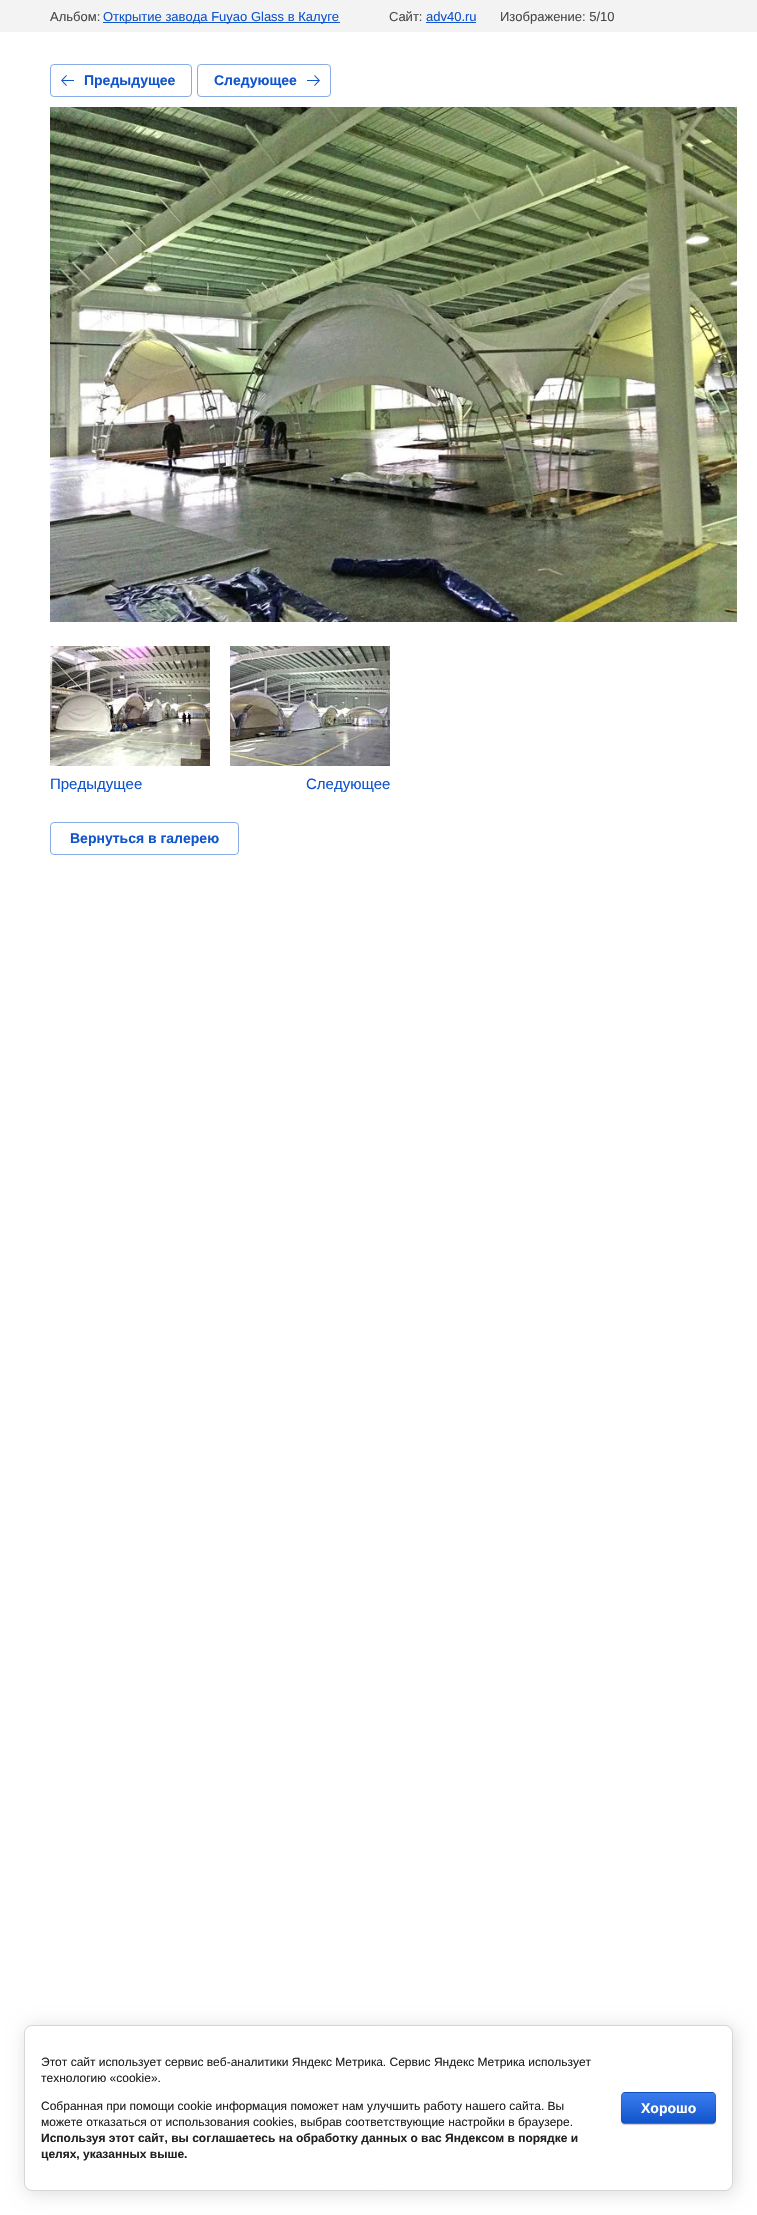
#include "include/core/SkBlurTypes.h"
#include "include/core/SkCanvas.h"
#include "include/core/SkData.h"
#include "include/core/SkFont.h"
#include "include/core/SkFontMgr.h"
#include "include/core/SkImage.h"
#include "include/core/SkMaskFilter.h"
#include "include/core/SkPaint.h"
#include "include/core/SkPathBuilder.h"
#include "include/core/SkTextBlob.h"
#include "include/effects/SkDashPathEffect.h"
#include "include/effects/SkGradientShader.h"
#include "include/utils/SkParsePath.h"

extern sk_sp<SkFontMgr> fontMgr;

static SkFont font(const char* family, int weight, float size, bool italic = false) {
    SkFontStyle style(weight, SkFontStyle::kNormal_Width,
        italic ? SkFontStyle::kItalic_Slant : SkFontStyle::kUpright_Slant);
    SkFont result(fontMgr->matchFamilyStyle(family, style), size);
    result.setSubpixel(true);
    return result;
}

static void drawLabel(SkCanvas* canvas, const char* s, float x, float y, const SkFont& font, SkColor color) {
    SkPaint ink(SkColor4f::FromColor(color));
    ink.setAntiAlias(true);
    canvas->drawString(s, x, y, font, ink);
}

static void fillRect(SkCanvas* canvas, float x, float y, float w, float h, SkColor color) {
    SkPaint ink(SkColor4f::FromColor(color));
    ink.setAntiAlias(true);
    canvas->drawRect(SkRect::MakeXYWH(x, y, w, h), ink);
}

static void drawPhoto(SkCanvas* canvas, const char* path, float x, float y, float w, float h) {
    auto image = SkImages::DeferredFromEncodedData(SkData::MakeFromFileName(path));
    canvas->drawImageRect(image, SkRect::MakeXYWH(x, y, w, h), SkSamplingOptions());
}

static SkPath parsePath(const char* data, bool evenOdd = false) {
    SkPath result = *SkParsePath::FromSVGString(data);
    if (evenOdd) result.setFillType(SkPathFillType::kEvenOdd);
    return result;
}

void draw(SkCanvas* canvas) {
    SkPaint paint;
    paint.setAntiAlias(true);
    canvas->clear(0xFFFFFFFF);
    fillRect(canvas, 0, 0, 757, 32, 0xFFF3F3F3);
    SkFont font1 = font("Liberation Sans", 400, 13);
    drawLabel(canvas, "Альбом:", 50, 21, font1, 0xFF484848);
    fillRect(canvas, 103, 22, 237, 1, 0xFF1155CC);
    drawLabel(canvas, "Открытие завода Fuyao Glass в Калуге", 103, 21, font1, 0xFF1155CC);
    drawLabel(canvas, "Сайт:", 389, 21, font1, 0xFF484848);
    drawLabel(canvas, "adv40.ru", 426, 21, font1, 0xFF1155CC);
    fillRect(canvas, 426, 22, 50, 1, 0xFF1155CC);
    drawLabel(canvas, "Изображение: 5/10", 500, 21, font1, 0xFF484848);
    paint.setStroke(true);
    paint.setStrokeWidth(1);
    paint.setColor(0xFF88AAE6);
    canvas->drawRoundRect(SkRect::MakeXYWH(50.5f, 64.5f, 141, 32), 3.5f, 3.5f, paint);
    drawPhoto(canvas, "assets/img1.png", 61, 75, 13, 11);
    SkFont font2 = font("Liberation Sans", 700, 14);
    drawLabel(canvas, "Предыдущее", 84, 85, font2, 0xFF1155CC);
    canvas->drawRoundRect(SkRect::MakeXYWH(197.5f, 64.5f, 133, 32), 3.5f, 3.5f, paint);
    drawLabel(canvas, "Следующее", 214, 85, font2, 0xFF1155CC);
    drawPhoto(canvas, "assets/img2.png", 307, 75, 13, 11);
    drawPhoto(canvas, "assets/img3.png", 50, 107, 687, 515);
    drawPhoto(canvas, "assets/img4.png", 50, 646, 160, 120);
    SkFont font3 = font("Liberation Sans", 400, 15);
    drawLabel(canvas, "Предыдущее", 50, 789, font3, 0xFF1155CC);
    drawPhoto(canvas, "assets/img5.png", 230, 646, 160, 120);
    drawLabel(canvas, "Следующее", 306, 789, font3, 0xFF1155CC);
    canvas->drawRoundRect(SkRect::MakeXYWH(50.5f, 822.5f, 188, 32), 3.5f, 3.5f, paint);
    drawLabel(canvas, "Вернуться в галерею", 70, 843, font2, 0xFF1155CC);
    paint.setStroke(false);
    paint.setColor(0x24000000);
    paint.setMaskFilter(SkMaskFilter::MakeBlur(kNormal_SkBlurStyle, 9));
    canvas->drawRoundRect(SkRect::MakeXYWH(26, 2027, 709, 166), 8, 8, paint);
    paint.setMaskFilter(nullptr);
    paint.setColor(0xFFFFFFFF);
    canvas->drawRoundRect(SkRect::MakeXYWH(24.5f, 2025.5f, 708, 165), 7.5f, 7.5f, paint);
    paint.setStroke(true);
    paint.setColor(0xFFD6D6D6);
    canvas->drawRoundRect(SkRect::MakeXYWH(24.5f, 2025.5f, 708, 165), 7.5f, 7.5f, paint);
    SkFont font4 = font("Liberation Sans", 400, 12);
    drawLabel(canvas, "Этот сайт использует сервис веб-аналитики Яндекс Метрика. Сервис Яндекс Метрика использует", 41, 2066, font4, 0xFF212121);
    drawLabel(canvas, "технологию «cookie».", 41, 2082, font4, 0xFF212121);
    drawLabel(canvas, "Собранная при помощи cookie информация поможет нам улучшить работу нашего сайта. Вы", 41, 2110, font4, 0xFF212121);
    drawLabel(canvas, "можете отказаться от использования cookies, выбрав соответствующие настройки в браузере.", 41, 2126, font4, 0xFF212121);
    SkFont font5 = font("Liberation Sans", 700, 12);
    drawLabel(canvas, "Используя этот сайт, вы соглашаетесь на обработку данных о вас Яндексом в порядке и", 41, 2142, font5, 0xFF212121);
    drawLabel(canvas, "целях, указанных выше.", 41, 2158, font5, 0xFF212121);
    paint.setStroke(false);
    paint.setColor(0x33000000);
    paint.setMaskFilter(SkMaskFilter::MakeBlur(kNormal_SkBlurStyle, 0.5f));
    canvas->drawRoundRect(SkRect::MakeXYWH(621, 2093, 95, 32), 4, 4, paint);
    paint.setMaskFilter(nullptr);
    canvas->save();
    canvas->clipPath(parsePath("M625 2092H712C714 2092 716 2094 716 2096V2120C716 2122 714 2124 712 2124H625C623 2124 621 2122 621 2120V2096C621 2094 623 2092 625 2092Z"), true);
    {
        const SkColor colors[] = {0xFF3B7CEF, 0xFF1155CC};
        const float stops[] = {0, 1};
        const SkPoint ends[] = {{669, 2063}, {669, 2093}};
        paint.setShader(SkGradientShader::MakeLinear(ends, colors, stops, 2, SkTileMode::kClamp));
        paint.setAlpha(255);
    }
    canvas->drawRect(SkRect::MakeXYWH(621, 2092, 95, 1), paint);
    {
        const SkColor colors[] = {0xFF3B7CEF, 0xFF1155CC};
        const float stops[] = {0, 1};
        const SkPoint ends[] = {{669, 2093}, {669, 2123}};
        paint.setShader(SkGradientShader::MakeLinear(ends, colors, stops, 2, SkTileMode::kClamp));
        paint.setAlpha(255);
    }
    canvas->drawRect(SkRect::MakeXYWH(621, 2093, 95, 30), paint);
    {
        const SkColor colors[] = {0xFF3B7CEF, 0xFF1155CC};
        const float stops[] = {0, 1};
        const SkPoint ends[] = {{669, 2123}, {669, 2153}};
        paint.setShader(SkGradientShader::MakeLinear(ends, colors, stops, 2, SkTileMode::kClamp));
        paint.setAlpha(255);
    }
    canvas->drawRect(SkRect::MakeXYWH(621, 2123, 95, 1), paint);
    canvas->restore();
    paint.setStroke(true);
    paint.setShader(nullptr);
    paint.setColor(0x1A000000);
    canvas->drawRoundRect(SkRect::MakeXYWH(621.5f, 2092.5f, 94, 31), 3.5f, 3.5f, paint);
    drawLabel(canvas, "Хорошо", 641, 2113, font2, 0xFFFFFFFF);
}
